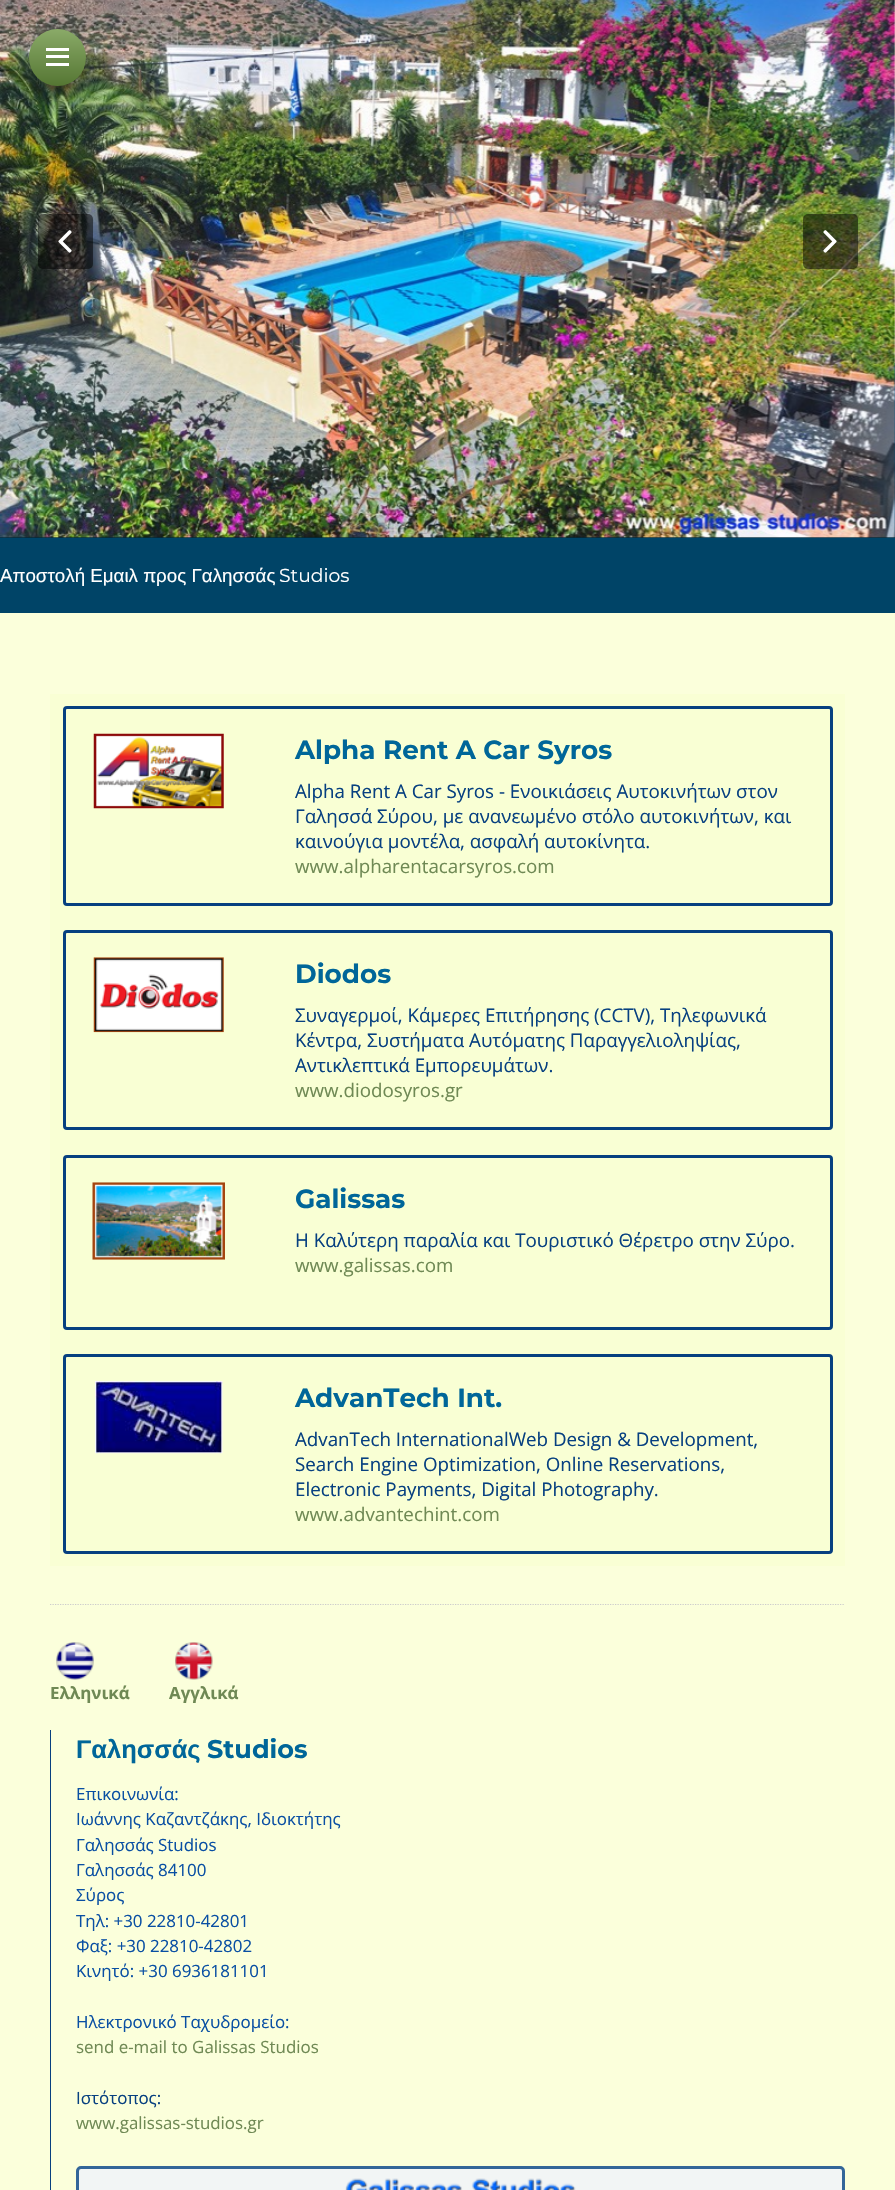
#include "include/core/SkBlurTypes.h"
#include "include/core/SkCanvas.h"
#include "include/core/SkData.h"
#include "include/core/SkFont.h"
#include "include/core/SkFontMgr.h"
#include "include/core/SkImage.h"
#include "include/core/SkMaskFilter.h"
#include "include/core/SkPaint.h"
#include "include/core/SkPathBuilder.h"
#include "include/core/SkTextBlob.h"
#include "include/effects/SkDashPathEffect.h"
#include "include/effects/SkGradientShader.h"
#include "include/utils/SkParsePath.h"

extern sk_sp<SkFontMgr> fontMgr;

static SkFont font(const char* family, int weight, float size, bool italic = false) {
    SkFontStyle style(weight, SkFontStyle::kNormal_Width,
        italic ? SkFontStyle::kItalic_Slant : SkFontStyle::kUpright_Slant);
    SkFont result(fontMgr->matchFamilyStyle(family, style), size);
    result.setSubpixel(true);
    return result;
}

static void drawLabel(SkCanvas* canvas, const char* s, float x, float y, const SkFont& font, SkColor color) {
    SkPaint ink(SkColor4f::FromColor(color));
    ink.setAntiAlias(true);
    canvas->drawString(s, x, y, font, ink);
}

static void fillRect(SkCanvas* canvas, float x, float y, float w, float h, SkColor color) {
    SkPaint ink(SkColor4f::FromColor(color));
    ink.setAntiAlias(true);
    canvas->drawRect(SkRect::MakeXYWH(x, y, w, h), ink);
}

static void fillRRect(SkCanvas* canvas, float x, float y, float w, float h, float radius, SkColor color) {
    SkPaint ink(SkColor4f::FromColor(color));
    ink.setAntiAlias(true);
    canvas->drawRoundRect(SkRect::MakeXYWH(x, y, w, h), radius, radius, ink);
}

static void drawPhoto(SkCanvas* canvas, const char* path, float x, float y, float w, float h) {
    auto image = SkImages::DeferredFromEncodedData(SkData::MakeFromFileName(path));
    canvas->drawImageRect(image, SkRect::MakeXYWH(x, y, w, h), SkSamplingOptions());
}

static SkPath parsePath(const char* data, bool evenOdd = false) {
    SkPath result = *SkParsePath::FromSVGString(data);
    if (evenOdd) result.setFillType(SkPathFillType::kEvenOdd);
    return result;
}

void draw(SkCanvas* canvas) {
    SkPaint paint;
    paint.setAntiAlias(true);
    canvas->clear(0xFFFBFFDB);
    {
        const SkColor colors[] = {0xFF006699, 0xFF00293D};
        const float stops[] = {0, 1};
        const SkPoint ends[] = {{448, 362}, {448, 538}};
        paint.setShader(SkGradientShader::MakeLinear(ends, colors, stops, 2, SkTileMode::kClamp));
        paint.setAlpha(255);
    }
    canvas->drawRect(SkRect::MakeXYWH(0, 363, 895, 175), paint);
    drawPhoto(canvas, "assets/img1.png", 0, 0, 895, 538);
    paint.setShader(nullptr);
    paint.setColor(0xE6000000);
    paint.setMaskFilter(SkMaskFilter::MakeBlur(kNormal_SkBlurStyle, 11));
    canvas->drawRoundRect(SkRect::MakeXYWH(35, 45, 45, 45), 22.5f, 22.5f, paint);
    paint.setMaskFilter(nullptr);
    {
        const SkColor colors[] = {0xFF8AAA68, 0xFF557633};
        const float stops[] = {0, 1};
        const SkPoint ends[] = {{58, 29}, {58, 86}};
        paint.setShader(SkGradientShader::MakeLinear(ends, colors, stops, 2, SkTileMode::kClamp));
        paint.setAlpha(255);
    }
    canvas->drawCircle(57.5f, 57.5f, 28.5f, paint);
    fillRect(canvas, 46, 48, 23, 3, 0xFFFFFFFF);
    fillRect(canvas, 46, 55, 23, 3, 0xFFFFFFFF);
    fillRect(canvas, 46, 63, 23, 3, 0xFFFFFFFF);
    fillRRect(canvas, 38, 214, 55, 55, 5, 0x80000000);
    drawPhoto(canvas, "assets/img2.png", 58, 230, 14, 23);
    fillRRect(canvas, 803, 214, 55, 55, 5, 0x80000000);
    drawPhoto(canvas, "assets/img3.png", 823, 230, 14, 23);
    fillRect(canvas, 0, 538, 895, 75, 0xFF004467);
    SkFont font1 = font("Liberation Sans", 400, 18.75f);
    drawLabel(canvas, "Αποστολή Εμαιλ προς Γαλησσάς", 0, 582, font1, 0xFFFFFFFF);
    SkFont font2 = font("Montserrat", 400, 18.75f);
    drawLabel(canvas, "Studios", 279, 582, font2, 0xFFFFFFFF);
    fillRect(canvas, 50, 694, 795, 872, 0xFFF9FFD4);
    paint.setStroke(true);
    paint.setStrokeWidth(3);
    paint.setShader(nullptr);
    paint.setColor(0xFF074080);
    canvas->drawRoundRect(SkRect::MakeXYWH(64.5f, 707.5f, 767, 197), 2.5f, 2.5f, paint);
    drawPhoto(canvas, "assets/img4.png", 93, 733, 131, 76);
    SkFont font3 = font("Montserrat", 700, 26.25f);
    drawLabel(canvas, "Alpha Rent A Car Syros", 295, 759, font3, 0xFF006699);
    SkFont font4 = font("Open Sans", 400, 18.75f);
    drawLabel(canvas, "Alpha Rent A Car Syros - Ενοικιάσεις Αυτοκινήτων στον", 295, 798, font4, 0xFF074080);
    drawLabel(canvas, "Γαλησσά Σύρου, με ανανεωμένο στόλο αυτοκινήτων, και", 295, 823, font4, 0xFF074080);
    drawLabel(canvas, "καινούγια μοντέλα, ασφαλή αυτοκίνητα.", 295, 848, font4, 0xFF074080);
    drawLabel(canvas, "www.alpharentacarsyros.com", 295, 873, font4, 0xFF6F8954);
    canvas->drawRoundRect(SkRect::MakeXYWH(64.5f, 931.5f, 767, 197), 2.5f, 2.5f, paint);
    drawPhoto(canvas, "assets/img5.png", 93, 957, 131, 76);
    drawLabel(canvas, "Diodos", 295, 983, font3, 0xFF006699);
    drawLabel(canvas, "Συναγερμοί, Κάμερες Επιτήρησης (CCTV), Τηλεφωνικά", 295, 1022, font4, 0xFF074080);
    drawLabel(canvas, "Κέντρα, Συστήματα Αυτόματης Παραγγελιοληψίας,", 295, 1047, font4, 0xFF074080);
    drawLabel(canvas, "Αντικλεπτικά Εμπορευμάτων.", 295, 1072, font4, 0xFF074080);
    drawLabel(canvas, "www.diodosyros.gr", 295, 1097, font4, 0xFF6F8954);
    canvas->drawRoundRect(SkRect::MakeXYWH(64.5f, 1156.5f, 767, 172), 2.5f, 2.5f, paint);
    drawPhoto(canvas, "assets/img6.png", 92, 1182, 133, 78);
    drawLabel(canvas, "Galissas", 295, 1208, font3, 0xFF006699);
    drawLabel(canvas, "Η Καλύτερη παραλία και Τουριστικό Θέρετρο στην Σύρο.", 295, 1247, font4, 0xFF074080);
    drawLabel(canvas, "www.galissas.com", 295, 1272, font4, 0xFF6F8954);
    canvas->drawRoundRect(SkRect::MakeXYWH(64.5f, 1355.5f, 767, 197), 2.5f, 2.5f, paint);
    drawPhoto(canvas, "assets/img7.png", 95, 1381, 128, 73);
    drawLabel(canvas, "AdvanTech Int.", 295, 1407, font3, 0xFF006699);
    drawLabel(canvas, "AdvanTech InternationalWeb Design & Development,", 295, 1446, font4, 0xFF074080);
    drawLabel(canvas, "Search Engine Optimization, Online Reservations,", 295, 1471, font4, 0xFF074080);
    drawLabel(canvas, "Electronic Payments, Digital Photography.", 295, 1496, font4, 0xFF074080);
    drawLabel(canvas, "www.advantechint.com", 295, 1521, font4, 0xFF6F8954);
    canvas->save();
    canvas->clipRect(SkRect::MakeXYWH(50, 1604, 795, 1));
    paint.setStrokeWidth(1.2f);
    paint.setColor(0xFFCCCCCC);
    paint.setPathEffect(SkDashPathEffect::Make({{1.25f, 1.25f}}, 0));
    canvas->drawPath(parsePath("M50 1604.5H845"), paint);
    paint.setPathEffect(nullptr);
    canvas->restore();
    drawPhoto(canvas, "assets/img8.png", 56, 1642, 38, 38);
    SkFont font5 = font("Open Sans", 700, 16.9f);
    drawLabel(canvas, "Ελληνικά", 50, 1699, font5, 0xFF6F8954);
    drawPhoto(canvas, "assets/img9.png", 175, 1642, 38, 38);
    drawLabel(canvas, "Αγγλικά", 169, 1699, font5, 0xFF6F8954);
    fillRect(canvas, 50, 1730, 1, 460, 0xFF074080);
    SkFont font6 = font("Liberation Sans", 700, 25.5f);
    drawLabel(canvas, "Γαλησσάς", 76, 1758, font6, 0xFF006699);
    SkFont font7 = font("Montserrat", 700, 25.5f);
    drawLabel(canvas, "Studios", 207, 1758, font7, 0xFF006699);
    SkFont font8 = font("Open Sans", 400, 16.9f);
    drawLabel(canvas, "Επικοινωνία:", 76, 1800, font8, 0xFF094FA3);
    drawLabel(canvas, "Ιωάννης Καζαντζάκης, Ιδιοκτήτης", 76, 1825, font8, 0xFF094FA3);
    drawLabel(canvas, "Γαλησσάς Studios", 76, 1851, font8, 0xFF094FA3);
    drawLabel(canvas, "Γαλησσάς 84100", 76, 1876, font8, 0xFF094FA3);
    drawLabel(canvas, "Σύρος", 76, 1901, font8, 0xFF094FA3);
    drawLabel(canvas, "Τηλ: +30 22810-42801", 76, 1927, font8, 0xFF094FA3);
    drawLabel(canvas, "Φαξ: +30 22810-42802", 76, 1952, font8, 0xFF094FA3);
    drawLabel(canvas, "Κινητό: +30 6936181101", 76, 1977, font8, 0xFF094FA3);
    drawLabel(canvas, "Ηλεκτρονικό Ταχυδρομείο:", 76, 2028, font8, 0xFF094FA3);
    drawLabel(canvas, "send e-mail to Galissas Studios", 76, 2053, font8, 0xFF6F8954);
    drawLabel(canvas, "Ιστότοπος:", 76, 2104, font8, 0xFF074080);
    drawLabel(canvas, "www.galissas-studios.gr", 76, 2129, font8, 0xFF6F8954);
    paint.setStroke(false);
    paint.setColor(0xFFF2F5F5);
    canvas->drawRoundRect(SkRect::MakeXYWH(77.5f, 2167.5f, 766, 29), 3.5f, 3.5f, paint);
    paint.setStroke(true);
    paint.setStrokeWidth(3);
    paint.setColor(0xFF336699);
    canvas->drawRoundRect(SkRect::MakeXYWH(77.5f, 2167.5f, 766, 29), 3.5f, 3.5f, paint);
    drawPhoto(canvas, "assets/img10.png", 345, 2178, 231, 12);
}
